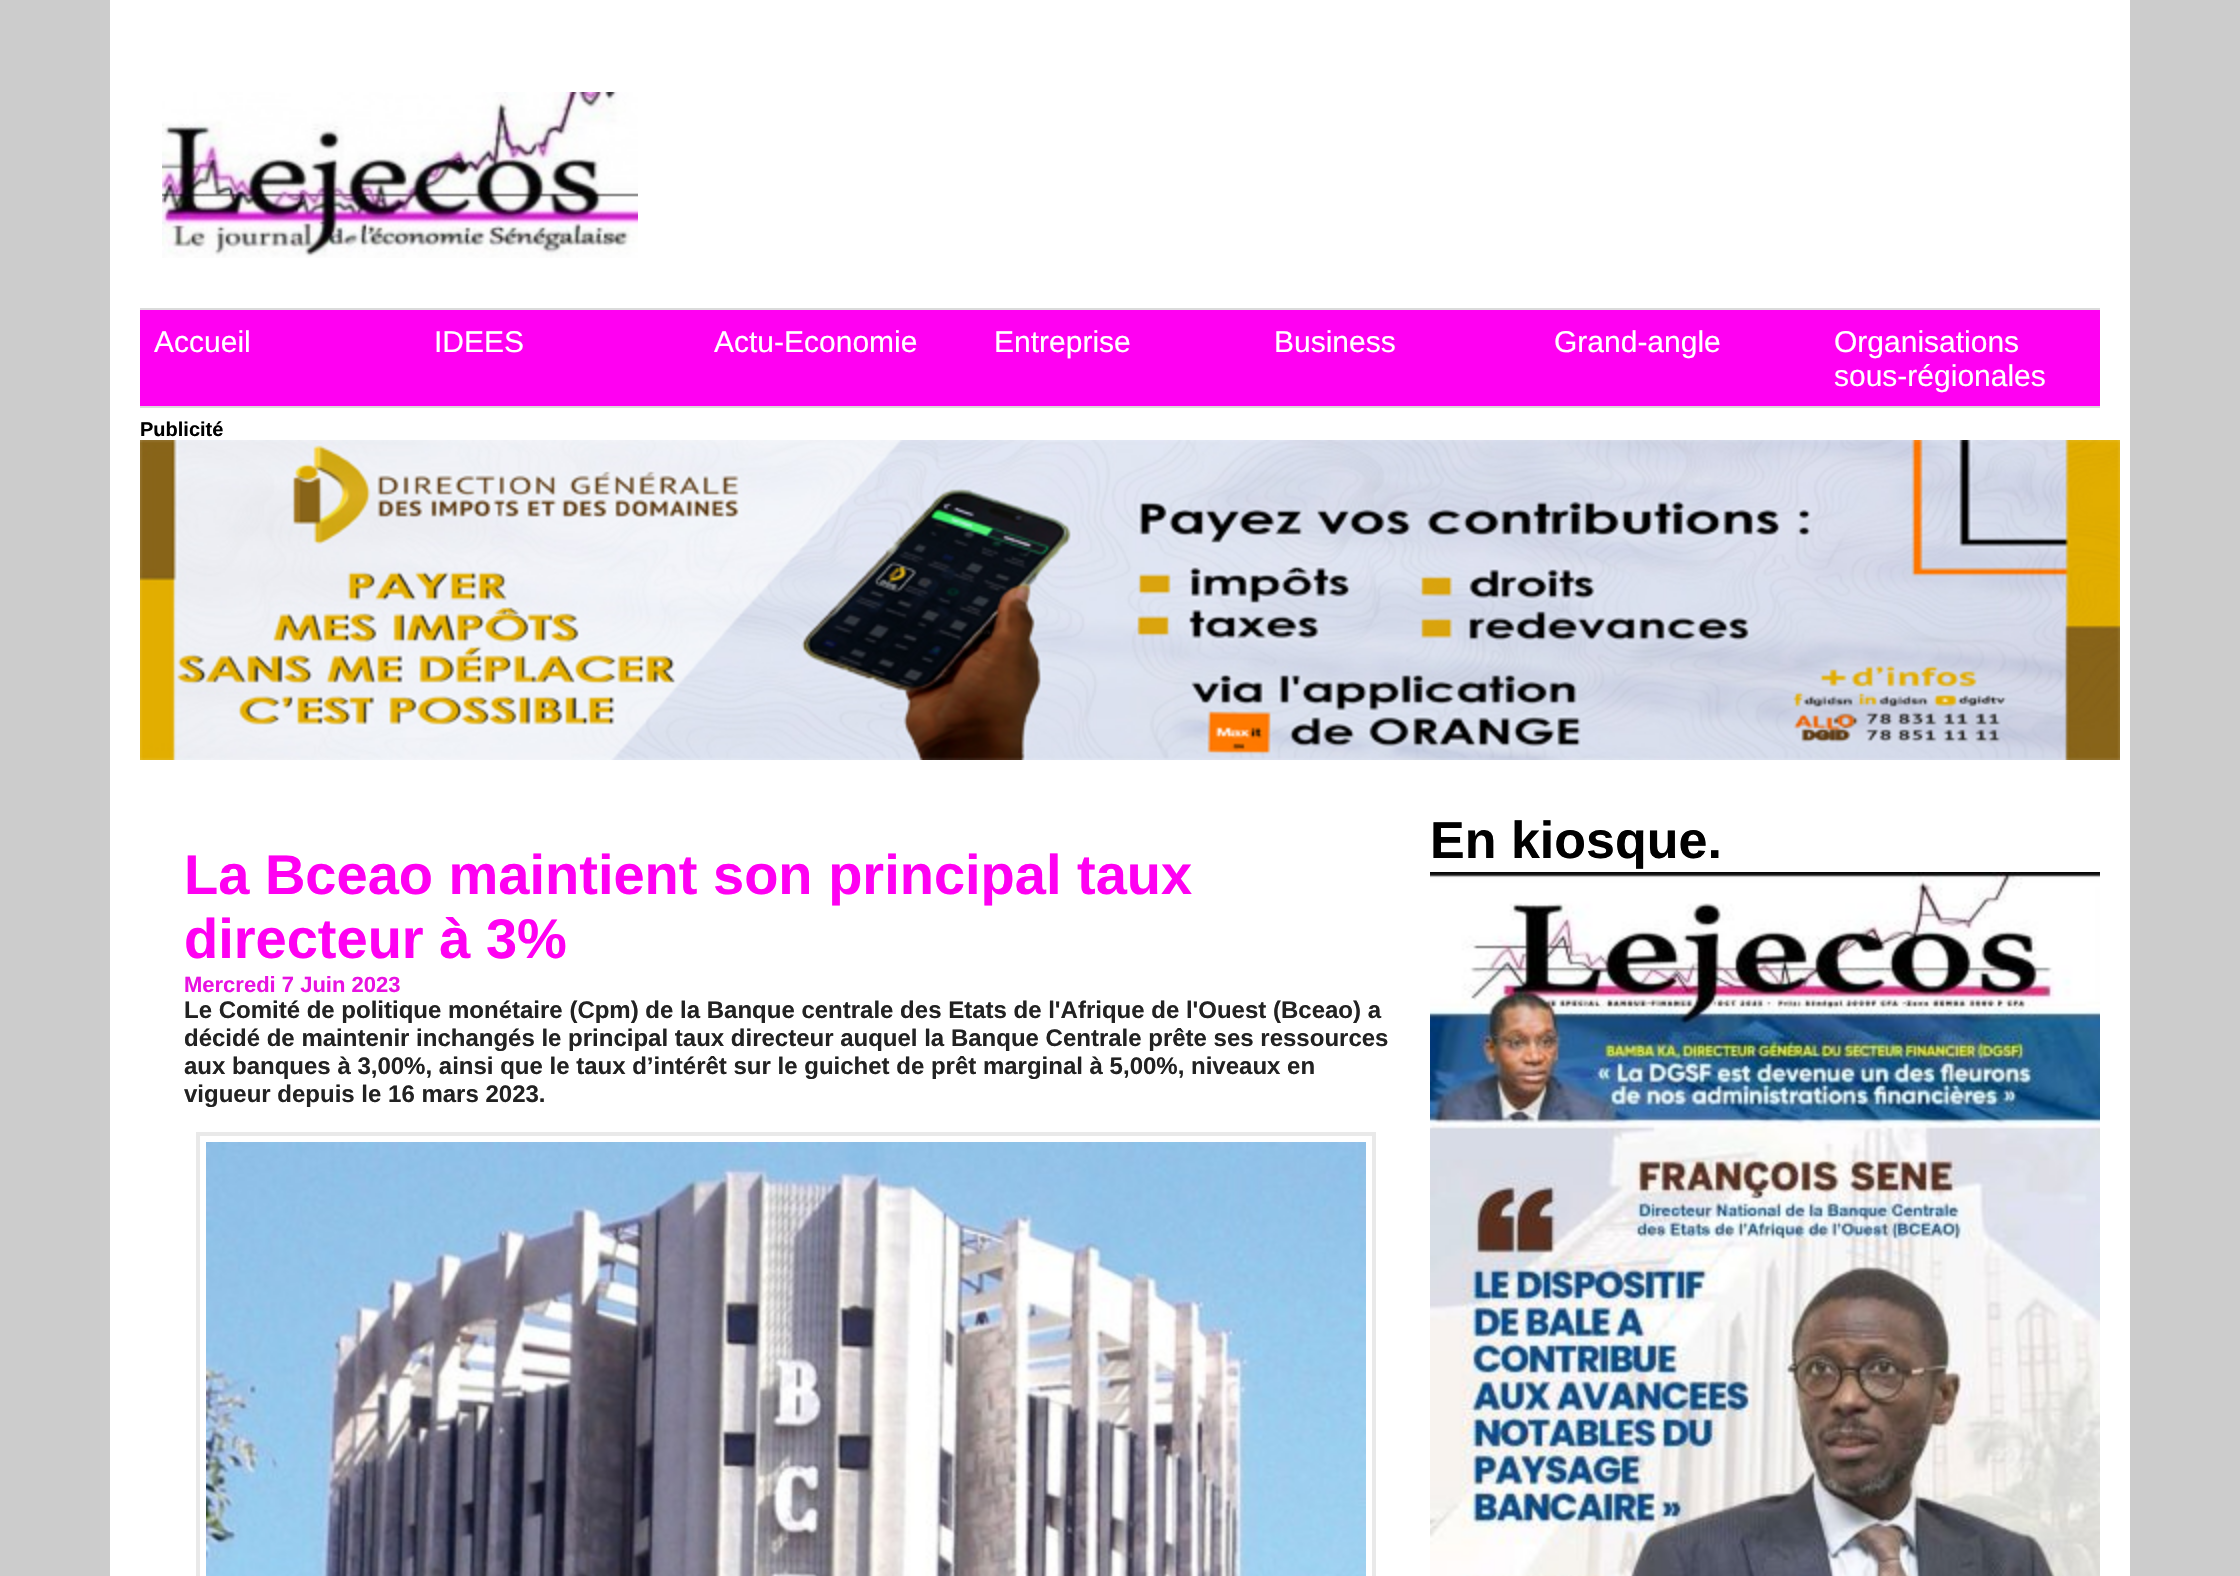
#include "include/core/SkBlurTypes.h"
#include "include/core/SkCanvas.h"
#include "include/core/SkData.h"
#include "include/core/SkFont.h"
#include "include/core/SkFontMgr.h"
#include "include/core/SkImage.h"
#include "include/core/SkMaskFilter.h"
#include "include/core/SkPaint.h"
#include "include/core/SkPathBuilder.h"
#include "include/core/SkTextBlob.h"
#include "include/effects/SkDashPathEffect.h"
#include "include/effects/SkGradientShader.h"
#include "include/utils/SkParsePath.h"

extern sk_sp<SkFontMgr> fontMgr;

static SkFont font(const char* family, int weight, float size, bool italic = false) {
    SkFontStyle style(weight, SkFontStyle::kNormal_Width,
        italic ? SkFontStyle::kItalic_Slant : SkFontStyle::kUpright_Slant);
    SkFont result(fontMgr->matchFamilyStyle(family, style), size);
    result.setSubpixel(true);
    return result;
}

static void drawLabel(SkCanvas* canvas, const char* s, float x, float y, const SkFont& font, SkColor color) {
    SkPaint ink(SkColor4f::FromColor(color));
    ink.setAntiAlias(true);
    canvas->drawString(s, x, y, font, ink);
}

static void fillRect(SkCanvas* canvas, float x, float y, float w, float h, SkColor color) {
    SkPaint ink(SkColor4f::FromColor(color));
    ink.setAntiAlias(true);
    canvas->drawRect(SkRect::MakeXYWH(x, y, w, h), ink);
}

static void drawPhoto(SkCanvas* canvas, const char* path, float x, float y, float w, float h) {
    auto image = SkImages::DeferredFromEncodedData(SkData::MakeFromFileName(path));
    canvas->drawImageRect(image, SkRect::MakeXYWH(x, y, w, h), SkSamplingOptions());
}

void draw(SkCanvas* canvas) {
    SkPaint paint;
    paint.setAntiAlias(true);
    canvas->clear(0xFFCCCCCC);
    fillRect(canvas, 2100, 0, 30, 1576, 0xFFFFFFFF);
    fillRect(canvas, 110, 0, 1990, 1576, 0xFFFFFFFF);
    drawPhoto(canvas, "assets/img1.png", 162, 92, 476, 166);
    fillRect(canvas, 140, 308, 1960, 2, 0xFFDBDBDB);
    fillRect(canvas, 140, 406, 1960, 2, 0xFFDBDBDB);
    fillRect(canvas, 140, 310, 1960, 96, 0xFFFF00F2);
    SkFont font1 = font("Liberation Sans", 400, 30);
    drawLabel(canvas, "Accueil", 154, 352, font1, 0xFFFFFFFF);
    drawLabel(canvas, "IDEES", 434, 352, font1, 0xFFFFFFFF);
    drawLabel(canvas, "Actu-Economie", 714, 352, font1, 0xFFFFFFFF);
    drawLabel(canvas, "Entreprise", 994, 352, font1, 0xFFFFFFFF);
    drawLabel(canvas, "Business", 1274, 352, font1, 0xFFFFFFFF);
    drawLabel(canvas, "Grand-angle", 1554, 352, font1, 0xFFFFFFFF);
    drawLabel(canvas, "Organisations", 1834, 352, font1, 0xFFFFFFFF);
    drawLabel(canvas, "sous-régionales", 1834, 386, font1, 0xFFFFFFFF);
    SkFont font2 = font("Liberation Sans", 700, 20);
    drawLabel(canvas, "Publicité", 140, 436, font2, 0xFF000000);
    drawPhoto(canvas, "assets/img2.png", 140, 440, 1980, 320);
    SkFont font3 = font("Liberation Sans", 700, 52);
    drawLabel(canvas, "En kiosque.", 1430, 858, font3, 0xFF000000);
    drawPhoto(canvas, "assets/img3.png", 1430, 872, 670, 704);
    SkFont font4 = font("Liberation Sans", 700, 56);
    drawLabel(canvas, "La Bceao maintient son principal taux", 184, 894, font4, 0xFFFF00F2);
    drawLabel(canvas, "directeur à 3%", 184, 958, font4, 0xFFFF00F2);
    SkFont font5 = font("Liberation Sans", 700, 22);
    drawLabel(canvas, "Mercredi 7 Juin 2023", 184, 992, font5, 0xFFE812E1);
    SkFont font6 = font("Liberation Sans", 700, 24);
    drawLabel(canvas, "Le Comité de politique monétaire (Cpm) de la Banque centrale des Etats de l'Afrique de l'Ouest (Bceao) a", 184, 1018, font6, 0xFF222222);
    drawLabel(canvas, "décidé de maintenir inchangés le principal taux directeur auquel la Banque Centrale prête ses ressources", 184, 1046, font6, 0xFF222222);
    drawLabel(canvas, "aux banques à 3,00%, ainsi que le taux d’intérêt sur le guichet de prêt marginal à 5,00%, niveaux en", 184, 1074, font6, 0xFF222222);
    drawLabel(canvas, "vigueur depuis le 16 mars 2023.", 184, 1102, font6, 0xFF222222);
    paint.setStroke(true);
    paint.setStrokeWidth(4);
    paint.setColor(0xFFE9E9E9);
    canvas->drawRect(SkRect::MakeXYWH(198, 1134, 1176, 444), paint);
    drawPhoto(canvas, "assets/img4.png", 206, 1142, 1160, 434);
}
